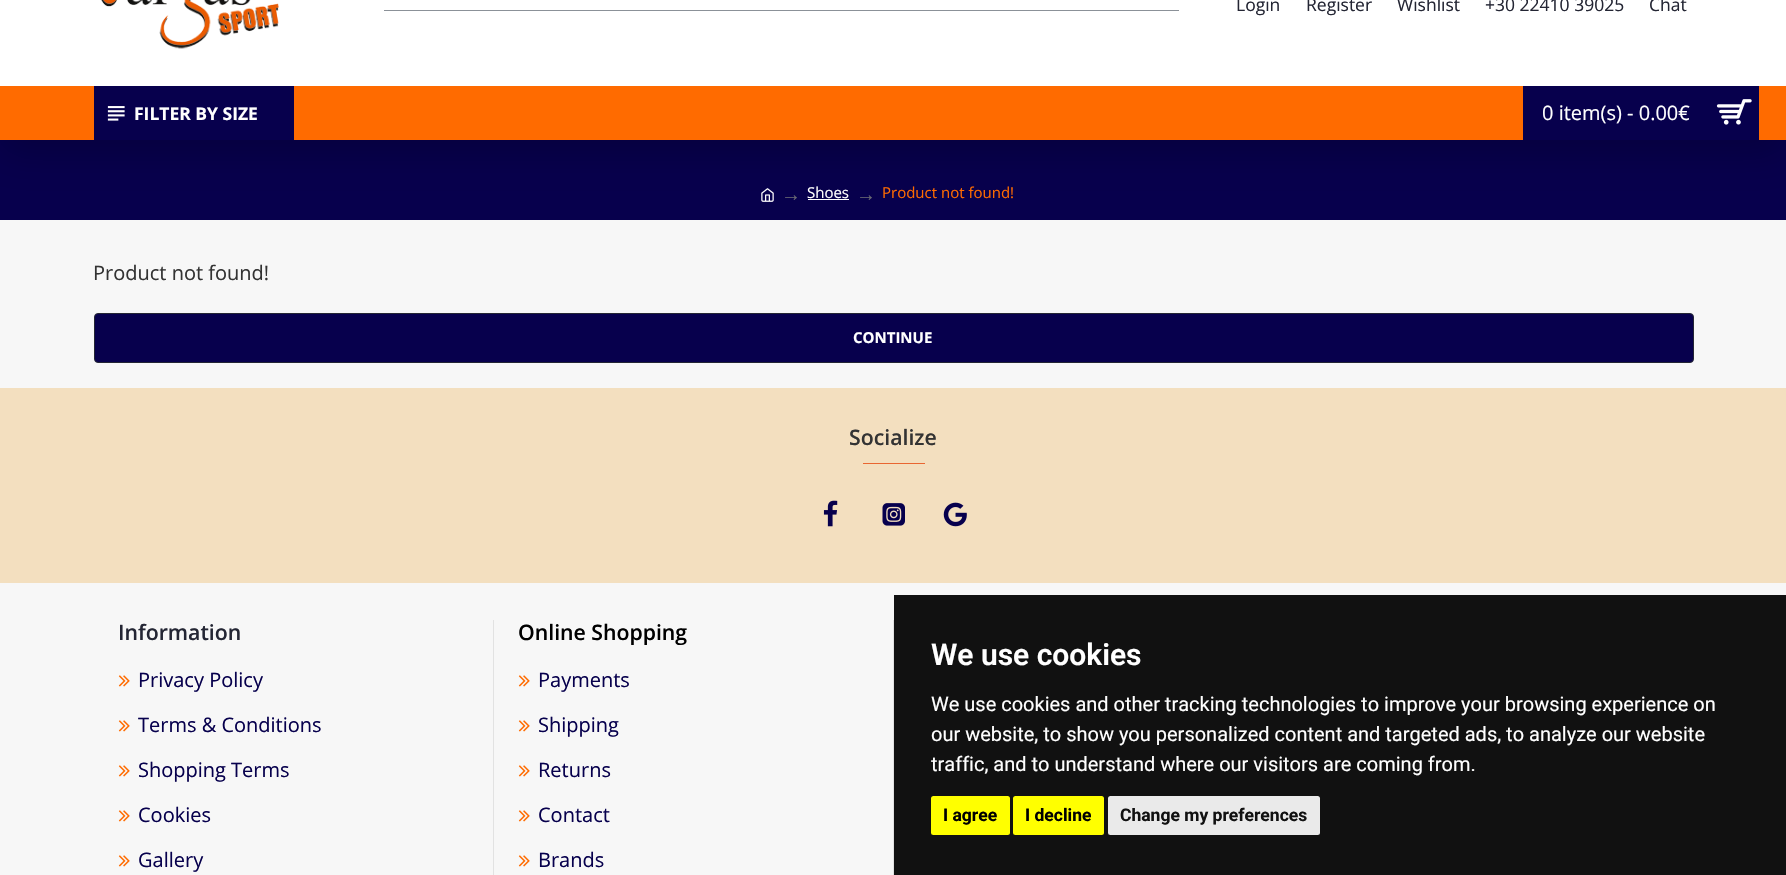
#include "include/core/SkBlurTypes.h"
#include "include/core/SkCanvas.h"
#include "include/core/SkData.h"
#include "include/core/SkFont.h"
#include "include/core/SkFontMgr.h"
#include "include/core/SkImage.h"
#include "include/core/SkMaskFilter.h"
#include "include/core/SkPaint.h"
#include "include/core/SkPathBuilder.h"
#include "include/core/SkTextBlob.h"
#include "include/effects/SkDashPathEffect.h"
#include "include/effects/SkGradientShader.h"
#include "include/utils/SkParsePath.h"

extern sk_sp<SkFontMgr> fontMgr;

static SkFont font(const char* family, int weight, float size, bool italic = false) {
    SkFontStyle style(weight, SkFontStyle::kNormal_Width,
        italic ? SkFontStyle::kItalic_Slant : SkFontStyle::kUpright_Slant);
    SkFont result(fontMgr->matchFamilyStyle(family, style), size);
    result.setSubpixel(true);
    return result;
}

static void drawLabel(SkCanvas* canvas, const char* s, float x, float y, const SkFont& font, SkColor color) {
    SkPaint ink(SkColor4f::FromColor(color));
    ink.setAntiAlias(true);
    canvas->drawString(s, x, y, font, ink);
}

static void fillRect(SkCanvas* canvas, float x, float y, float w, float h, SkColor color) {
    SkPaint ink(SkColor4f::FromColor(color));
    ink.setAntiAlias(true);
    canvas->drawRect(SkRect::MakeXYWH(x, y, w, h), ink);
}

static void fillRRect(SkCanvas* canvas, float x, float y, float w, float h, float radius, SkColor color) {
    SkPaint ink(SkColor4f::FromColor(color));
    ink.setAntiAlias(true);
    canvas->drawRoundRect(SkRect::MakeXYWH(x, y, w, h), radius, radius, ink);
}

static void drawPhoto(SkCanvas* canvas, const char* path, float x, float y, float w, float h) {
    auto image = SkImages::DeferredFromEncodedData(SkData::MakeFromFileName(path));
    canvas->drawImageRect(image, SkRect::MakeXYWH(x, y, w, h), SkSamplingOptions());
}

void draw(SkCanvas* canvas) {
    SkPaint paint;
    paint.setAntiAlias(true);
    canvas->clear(0xFFF7F7F7);
    fillRect(canvas, 0, 140, 1786, 80, 0xFF07004D);
    drawPhoto(canvas, "assets/img4.png", 761, 188, 13, 14);
    fillRect(canvas, 808, 199, 41, 1, 0xFFFFFFFF);
    paint.setColor(0x33000000);
    paint.setMaskFilter(SkMaskFilter::MakeBlur(kNormal_SkBlurStyle, 19));
    canvas->drawRect(SkRect::MakeXYWH(0, -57, 1786, 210), paint);
    paint.setMaskFilter(nullptr);
    fillRect(canvas, 0, 0, 1786, 86, 0xFFFFFFFF);
    drawPhoto(canvas, "assets/img1.png", 101, 0, 178, 49);
    fillRect(canvas, 384, 10, 795, 1, 0xFF8B9198);
    SkFont font1 = font("Open Sans", 400, 17.5f);
    drawLabel(canvas, "Login", 1236, 11, font1, 0xFF242634);
    drawLabel(canvas, "Register", 1306, 11, font1, 0xFF242634);
    drawLabel(canvas, "Wishlist", 1397, 11, font1, 0xFF242634);
    drawLabel(canvas, "+30 22410 39025", 1485, 11, font1, 0xFF242634);
    drawLabel(canvas, "Chat", 1649, 11, font1, 0xFF242634);
    fillRect(canvas, 0, 86, 1786, 54, 0xFFFF6B00);
    fillRect(canvas, 94, 86, 200, 54, 0xFF07004D);
    drawPhoto(canvas, "assets/img2.png", 107, 106, 18, 15);
    SkFont font2 = font("Open Sans", 700, 17.5f);
    drawLabel(canvas, "FILTER BY SIZE", 134, 120, font2, 0xFFFFFFFF);
    fillRect(canvas, 1523, 86, 236, 54, 0xFF07004D);
    SkFont font3 = font("Open Sans", 400, 20);
    drawLabel(canvas, "0 item(s) - 0.00€", 1542, 120, font3, 0xFFFFFFFF);
    drawPhoto(canvas, "assets/img3.png", 1716, 99, 36, 26);
    SkFont font4 = font("Liberation Serif", 400, 20);
    drawLabel(canvas, "→", 781, 201, font4, 0xFF696973);
    SkFont font5 = font("Open Sans", 400, 15);
    drawLabel(canvas, "Shoes", 807, 198, font5, 0xFFFFFFFF);
    drawLabel(canvas, "→", 856, 201, font4, 0xFF696973);
    drawLabel(canvas, "Product not found!", 882, 198, font5, 0xFFFF6B00);
    drawLabel(canvas, "Product not found!", 93, 280, font3, 0xFF333333);
    paint.setColor(0xFF07004D);
    canvas->drawRoundRect(SkRect::MakeXYWH(94.5f, 313.5f, 1599, 49), 3.5f, 3.5f, paint);
    paint.setStroke(true);
    paint.setStrokeWidth(1);
    paint.setColor(0xFF242634);
    canvas->drawRoundRect(SkRect::MakeXYWH(94.5f, 313.5f, 1599, 49), 3.5f, 3.5f, paint);
    SkFont font6 = font("Open Sans", 700, 15);
    drawLabel(canvas, "CONTINUE", 853, 343, font6, 0xFFFFFFFF);
    fillRect(canvas, 0, 388, 1786, 195, 0xFFF3DFBF);
    SkFont font7 = font("Open Sans", 600, 21.25f);
    drawLabel(canvas, "Socialize", 849, 445, font7, 0xFF333333);
    fillRect(canvas, 863, 463, 62, 1, 0xFFE96631);
    drawPhoto(canvas, "assets/img5.png", 823, 500, 15, 27);
    drawPhoto(canvas, "assets/img6.png", 882, 503, 23, 23);
    drawPhoto(canvas, "assets/img7.png", 943, 502, 24, 25);
    fillRect(canvas, 493, 620, 1, 255, 0xFFE2E2E2);
    drawLabel(canvas, "Information", 118, 640, font7, 0xFF242634);
    drawPhoto(canvas, "assets/img8.png", 118, 675, 12, 12);
    drawLabel(canvas, "Privacy Policy", 138, 687, font3, 0xFF07004D);
    drawPhoto(canvas, "assets/img8.png", 118, 720, 12, 12);
    drawLabel(canvas, "Terms & Conditions", 138, 732, font3, 0xFF07004D);
    drawPhoto(canvas, "assets/img8.png", 118, 765, 12, 12);
    drawLabel(canvas, "Shopping Terms", 138, 777, font3, 0xFF07004D);
    drawPhoto(canvas, "assets/img8.png", 118, 810, 12, 12);
    drawLabel(canvas, "Cookies", 138, 822, font3, 0xFF07004D);
    drawPhoto(canvas, "assets/img8.png", 118, 855, 12, 12);
    drawLabel(canvas, "Gallery", 138, 867, font3, 0xFF07004D);
    fillRect(canvas, 893, 620, 1, 255, 0xFFE2E2E2);
    drawLabel(canvas, "Online Shopping", 518, 640, font7, 0xFF000000);
    drawPhoto(canvas, "assets/img8.png", 518, 675, 12, 12);
    drawLabel(canvas, "Payments", 538, 687, font3, 0xFF07004D);
    drawPhoto(canvas, "assets/img8.png", 518, 720, 12, 12);
    drawLabel(canvas, "Shipping", 538, 732, font3, 0xFF07004D);
    drawPhoto(canvas, "assets/img8.png", 518, 765, 12, 12);
    drawLabel(canvas, "Returns", 538, 777, font3, 0xFF07004D);
    drawPhoto(canvas, "assets/img8.png", 518, 810, 12, 12);
    drawLabel(canvas, "Contact", 538, 822, font3, 0xFF07004D);
    drawPhoto(canvas, "assets/img8.png", 518, 855, 12, 12);
    drawLabel(canvas, "Brands", 538, 867, font3, 0xFF07004D);
    fillRect(canvas, 894, 595, 892, 280, 0xFF111111);
    SkFont font8 = font("Roboto", 600, 30);
    drawLabel(canvas, "We use cookies", 931, 665, font8, 0xFFFFFFFF);
    SkFont font9 = font("Roboto", 400, 20);
    drawLabel(canvas, "We use cookies and other tracking technologies to improve your browsing experience on", 931, 711, font9, 0xFFFFFFFF);
    drawLabel(canvas, "our website, to show you personalized content and targeted ads, to analyze our website", 931, 741, font9, 0xFFFFFFFF);
    drawLabel(canvas, "traffic, and to understand where our visitors are coming from.", 931, 771, font9, 0xFFFFFFFF);
    fillRRect(canvas, 931, 796, 79, 39, 2.5f, 0xFFFFFF00);
    SkFont font10 = font("Roboto", 700, 17.5f);
    drawLabel(canvas, "I agree", 943, 821, font10, 0xFF000000);
    fillRRect(canvas, 1013, 796, 91, 39, 2.5f, 0xFFFFFF00);
    drawLabel(canvas, "I decline", 1025, 821, font10, 0xFF000000);
    fillRRect(canvas, 1108, 796, 212, 39, 2.5f, 0xFFEAEAEA);
    drawLabel(canvas, "Change my preferences", 1120, 821, font10, 0xFF111111);
}
